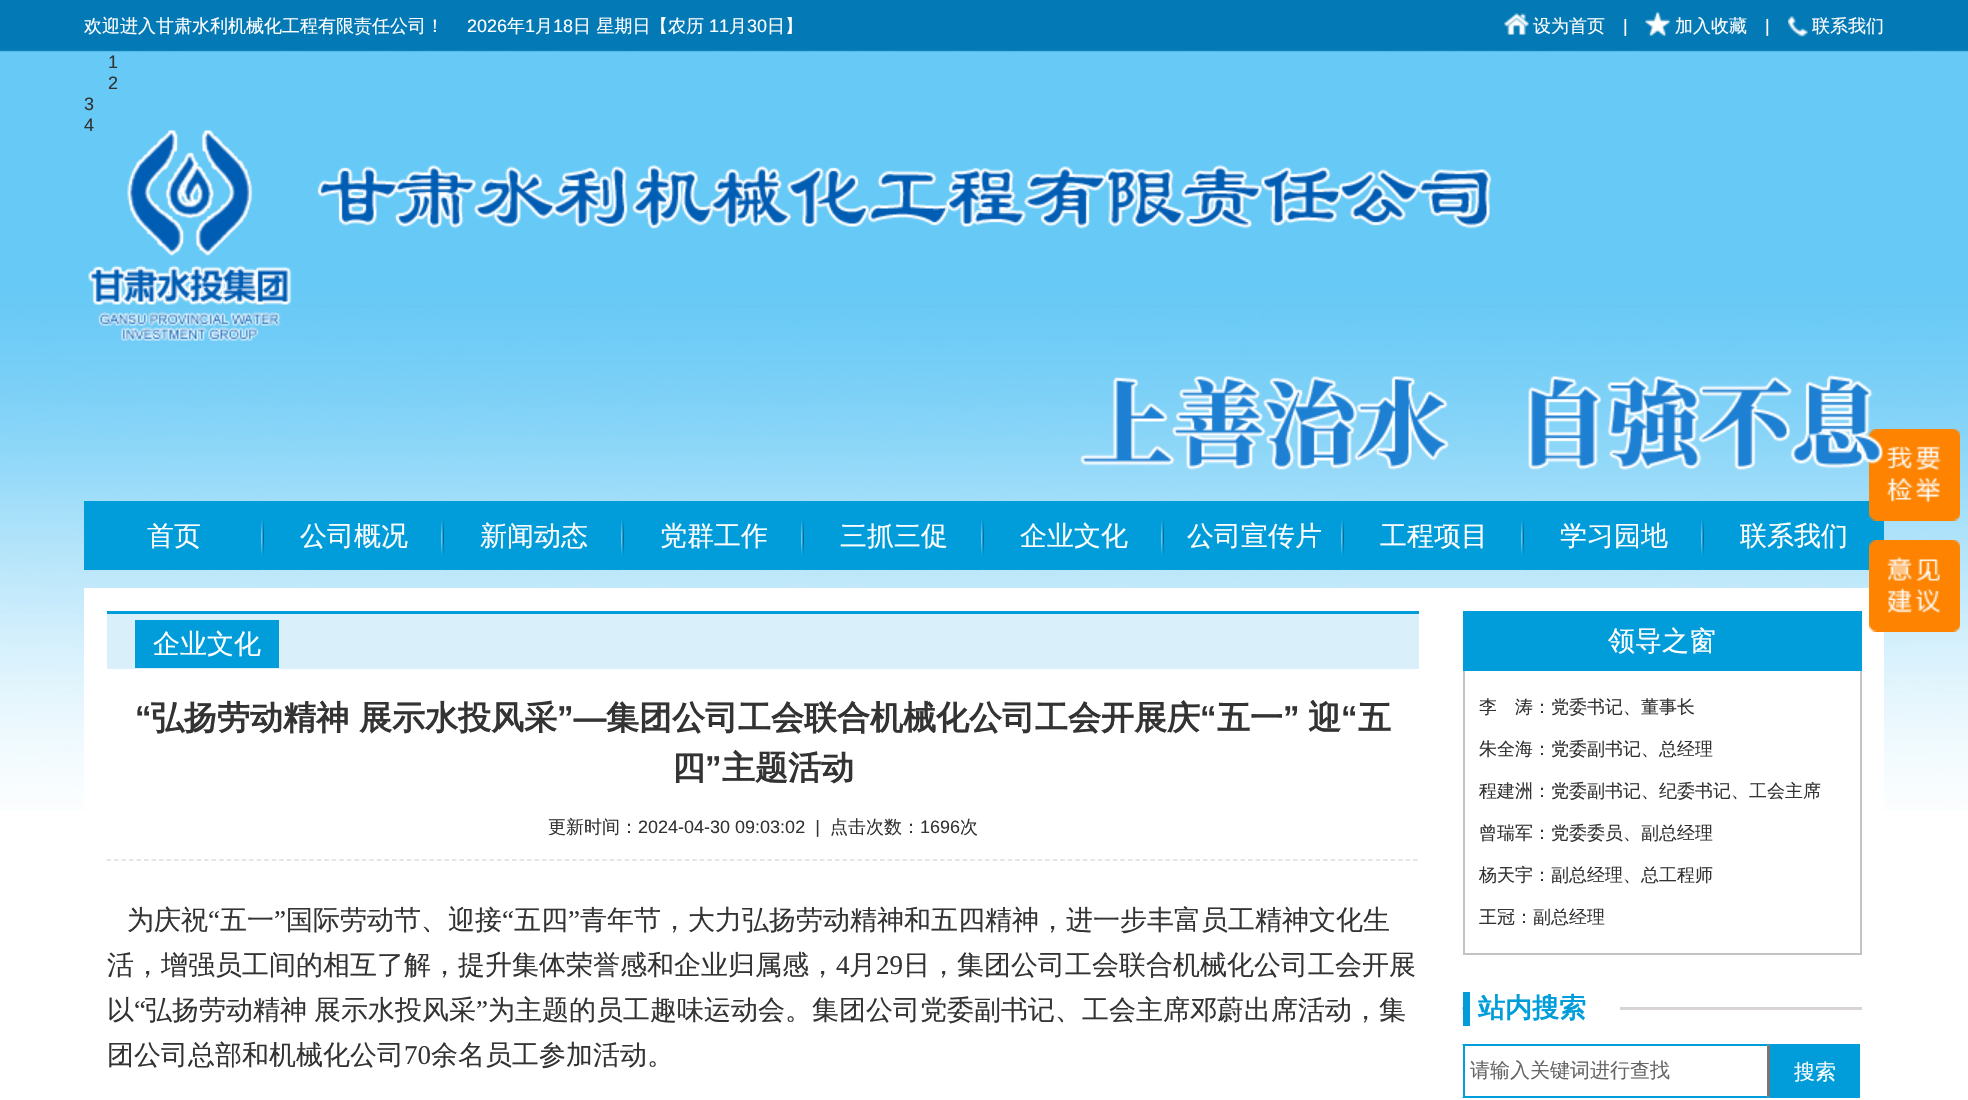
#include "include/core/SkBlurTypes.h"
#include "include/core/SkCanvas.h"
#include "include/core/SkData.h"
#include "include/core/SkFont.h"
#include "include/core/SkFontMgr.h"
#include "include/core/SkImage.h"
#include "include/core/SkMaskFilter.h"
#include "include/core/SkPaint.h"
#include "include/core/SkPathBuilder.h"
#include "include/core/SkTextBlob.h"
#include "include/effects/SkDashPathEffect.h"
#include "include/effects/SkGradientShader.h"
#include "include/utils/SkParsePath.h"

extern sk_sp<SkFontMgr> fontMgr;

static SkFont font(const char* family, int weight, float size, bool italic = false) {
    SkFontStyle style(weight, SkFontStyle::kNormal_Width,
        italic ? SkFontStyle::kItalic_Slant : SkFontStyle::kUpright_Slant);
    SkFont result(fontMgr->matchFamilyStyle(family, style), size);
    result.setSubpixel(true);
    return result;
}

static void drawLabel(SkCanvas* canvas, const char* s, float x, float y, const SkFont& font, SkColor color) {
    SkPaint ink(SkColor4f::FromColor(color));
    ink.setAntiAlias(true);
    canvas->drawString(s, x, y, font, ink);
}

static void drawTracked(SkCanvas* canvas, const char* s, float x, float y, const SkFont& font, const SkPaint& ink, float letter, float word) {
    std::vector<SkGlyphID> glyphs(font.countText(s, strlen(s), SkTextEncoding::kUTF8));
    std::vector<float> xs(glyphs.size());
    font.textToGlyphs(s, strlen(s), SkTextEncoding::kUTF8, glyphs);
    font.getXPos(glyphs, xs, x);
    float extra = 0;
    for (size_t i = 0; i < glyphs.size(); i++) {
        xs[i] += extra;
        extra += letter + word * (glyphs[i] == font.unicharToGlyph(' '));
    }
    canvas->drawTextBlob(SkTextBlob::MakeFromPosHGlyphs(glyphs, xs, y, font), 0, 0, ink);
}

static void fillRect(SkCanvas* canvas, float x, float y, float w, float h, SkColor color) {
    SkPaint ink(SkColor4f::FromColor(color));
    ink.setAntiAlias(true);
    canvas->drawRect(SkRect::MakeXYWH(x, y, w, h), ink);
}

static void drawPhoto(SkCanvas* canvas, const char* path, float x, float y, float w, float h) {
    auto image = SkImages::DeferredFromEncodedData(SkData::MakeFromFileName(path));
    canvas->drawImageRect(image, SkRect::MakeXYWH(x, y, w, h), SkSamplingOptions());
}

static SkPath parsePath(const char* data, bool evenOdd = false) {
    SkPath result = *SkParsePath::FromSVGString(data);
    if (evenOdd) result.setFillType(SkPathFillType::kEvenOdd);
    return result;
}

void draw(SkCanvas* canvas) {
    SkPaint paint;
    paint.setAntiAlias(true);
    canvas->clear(0xFFFFFFFF);
    drawPhoto(canvas, "assets/img1.png", 0, 0, 1968, 810);
    SkFont font1 = font("WenQuanYi Zen Hei", 500, 18);
    drawLabel(canvas, "欢迎进入甘肃水利机械化工程有限责任公司！", 84, 32, font1, 0xFFFFFFFF);
    SkFont font2 = font("Liberation Sans", 400, 18);
    drawLabel(canvas, "2026", 467, 32, font2, 0xFFFFFFFF);
    drawLabel(canvas, "年", 507, 32, font1, 0xFFFFFFFF);
    drawLabel(canvas, "1", 525, 32, font2, 0xFFFFFFFF);
    drawLabel(canvas, "月", 535, 32, font1, 0xFFFFFFFF);
    drawLabel(canvas, "18", 553, 32, font2, 0xFFFFFFFF);
    drawLabel(canvas, "日 星期日", 573, 32, font1, 0xFFFFFFFF);
    drawLabel(canvas, "【农历", 650, 32, font1, 0xFFFFFFFF);
    drawLabel(canvas, "11", 709, 32, font2, 0xFFFFFFFF);
    drawLabel(canvas, "月", 729, 32, font1, 0xFFFFFFFF);
    drawLabel(canvas, "30", 747, 32, font2, 0xFFFFFFFF);
    drawLabel(canvas, "日】", 767, 32, font1, 0xFFFFFFFF);
    drawPhoto(canvas, "assets/img2.png", 1504, 13, 25, 22);
    drawLabel(canvas, "设为首页", 1533, 32, font1, 0xFFFFFFFF);
    drawLabel(canvas, "|", 1623, 32, font2, 0xFFFFFFFF);
    drawPhoto(canvas, "assets/img3.png", 1645, 11, 25, 25);
    drawLabel(canvas, "加入收藏", 1675, 32, font1, 0xFFFFFFFF);
    drawLabel(canvas, "|", 1765, 32, font2, 0xFFFFFFFF);
    drawPhoto(canvas, "assets/img4.png", 1788, 16, 20, 21);
    drawLabel(canvas, "联系我们", 1812, 32, font1, 0xFFFFFFFF);
    drawLabel(canvas, "1", 108, 68, font2, 0xFF333333);
    drawLabel(canvas, "2", 108, 89, font2, 0xFF333333);
    drawLabel(canvas, "3", 84, 110, font2, 0xFF333333);
    drawLabel(canvas, "4", 84, 131, font2, 0xFF333333);
    fillRect(canvas, 84, 501, 1800, 69, 0xFF009DDA);
    drawPhoto(canvas, "assets/img8.png", 1869, 429, 91, 92);
    drawPhoto(canvas, "assets/img5.png", 88, 129, 1795, 341);
    drawPhoto(canvas, "assets/img6.png", 261, 501, 3, 69);
    SkFont font3 = font("WenQuanYi Zen Hei", 500, 27);
    drawLabel(canvas, "首页", 147, 545, font3, 0xFFFFFFFF);
    drawPhoto(canvas, "assets/img6.png", 441, 501, 3, 69);
    drawLabel(canvas, "公司概况", 300, 545, font3, 0xFFFFFFFF);
    drawPhoto(canvas, "assets/img7.png", 621, 501, 3, 69);
    drawLabel(canvas, "新闻动态", 480, 545, font3, 0xFFFFFFFF);
    drawPhoto(canvas, "assets/img7.png", 801, 501, 3, 69);
    drawLabel(canvas, "党群工作", 660, 545, font3, 0xFFFFFFFF);
    drawPhoto(canvas, "assets/img7.png", 981, 501, 3, 69);
    drawLabel(canvas, "三抓三促", 840, 545, font3, 0xFFFFFFFF);
    drawPhoto(canvas, "assets/img6.png", 1161, 501, 3, 69);
    drawLabel(canvas, "企业文化", 1020, 545, font3, 0xFFFFFFFF);
    drawPhoto(canvas, "assets/img6.png", 1341, 501, 3, 69);
    drawLabel(canvas, "公司宣传片", 1187, 545, font3, 0xFFFFFFFF);
    drawPhoto(canvas, "assets/img6.png", 1521, 501, 3, 69);
    drawLabel(canvas, "工程项目", 1380, 545, font3, 0xFFFFFFFF);
    drawPhoto(canvas, "assets/img7.png", 1701, 501, 3, 69);
    drawLabel(canvas, "学习园地", 1560, 545, font3, 0xFFFFFFFF);
    drawLabel(canvas, "联系我们", 1740, 545, font3, 0xFFFFFFFF);
    fillRect(canvas, 84, 588, 1800, 222, 0xFFFFFFFF);
    drawPhoto(canvas, "assets/img9.png", 1869, 540, 91, 92);
    fillRect(canvas, 107, 614, 1312, 55, 0xFFD9F0FB);
    fillRect(canvas, 107, 611, 1312, 3, 0xFF009DDA);
    fillRect(canvas, 135, 620, 144, 48, 0xFF009DDA);
    drawLabel(canvas, "企业文化", 153, 653, font3, 0xFFFFFFFF);
    SkFont font4 = font("Liberation Sans", 700, 33);
    drawLabel(canvas, "“", 135, 729, font4, 0xFF333333);
    SkFont font5 = font("WenQuanYi Zen Hei", 700, 33);
    drawLabel(canvas, "弘扬劳动精神 展示水投风采", 151, 729, font5, 0xFF333333);
    drawLabel(canvas, "”—", 557, 729, font4, 0xFF333333);
    drawLabel(canvas, "集团公司工会联合机械化公司工会开展庆", 606, 729, font5, 0xFF333333);
    drawLabel(canvas, "“", 1200, 729, font4, 0xFF333333);
    drawLabel(canvas, "五一", 1217, 729, font5, 0xFF333333);
    drawLabel(canvas, "”", 1283, 729, font4, 0xFF333333);
    drawLabel(canvas, "迎", 1308, 729, font5, 0xFF333333);
    drawLabel(canvas, "“", 1341, 729, font4, 0xFF333333);
    drawLabel(canvas, "五", 1358, 729, font5, 0xFF333333);
    drawLabel(canvas, "四", 672, 779, font5, 0xFF333333);
    drawLabel(canvas, "”", 705, 779, font4, 0xFF333333);
    drawLabel(canvas, "主题活动", 722, 779, font5, 0xFF333333);
    paint.setStroke(true);
    paint.setStrokeWidth(1.5f);
    paint.setColor(0xFFDDDDDD);
    paint.setPathEffect(SkDashPathEffect::Make({{4.5f, 3.01f}}, 0));
    canvas->drawPath(parsePath("M106.5 860H1419"), paint);
    paint.setPathEffect(nullptr);
    drawLabel(canvas, "更新时间：", 548, 833, font1, 0xFF333333);
    drawLabel(canvas, "2024-04-30 09:03:02  |", 638, 833, font2, 0xFF333333);
    drawLabel(canvas, "点击次数：", 830, 833, font1, 0xFF333333);
    drawLabel(canvas, "1696", 920, 833, font2, 0xFF333333);
    drawLabel(canvas, "次", 960, 833, font1, 0xFF333333);
    drawLabel(canvas, "为庆祝", 127, 929, font3, 0xFF333333);
    SkFont font6 = font("Liberation Serif", 400, 27);
    drawLabel(canvas, "“", 208, 929, font6, 0xFF333333);
    drawLabel(canvas, "五一", 220, 929, font3, 0xFF333333);
    drawLabel(canvas, "”", 274, 929, font6, 0xFF333333);
    drawLabel(canvas, "国际劳动节、迎接", 286, 929, font3, 0xFF333333);
    drawLabel(canvas, "“", 502, 929, font6, 0xFF333333);
    drawLabel(canvas, "五四", 514, 929, font3, 0xFF333333);
    drawLabel(canvas, "”", 568, 929, font6, 0xFF333333);
    drawLabel(canvas, "青年节，大力弘扬劳动精神和五四精神，进一步丰富员工精神文化生", 580, 929, font3, 0xFF333333);
    drawLabel(canvas, "活，增强员工间的相互了解，提升集体荣誉感和企业归属感，", 107, 974, font3, 0xFF333333);
    drawLabel(canvas, "4", 836, 974, font6, 0xFF333333);
    drawLabel(canvas, "月", 849, 974, font3, 0xFF333333);
    drawLabel(canvas, "29", 876, 974, font6, 0xFF333333);
    drawLabel(canvas, "日，集团公司工会联合机械化公司工会开展", 903, 974, font3, 0xFF333333);
    drawLabel(canvas, "以", 107, 1019, font3, 0xFF333333);
    drawLabel(canvas, "“", 134, 1019, font6, 0xFF333333);
    paint.setStroke(false);
    paint.setColor(0xFF333333);
    drawTracked(canvas, "弘扬劳动精神 展示水投风采", 145, 1019, font3, paint, 0, -1);
    drawLabel(canvas, "”", 476, 1019, font6, 0xFF333333);
    drawLabel(canvas, "为主题的员工趣味运动会。集团公司党委副书记、工会主席邓蔚出席活动，集", 488, 1019, font3, 0xFF333333);
    drawLabel(canvas, "团公司总部和机械化公司", 107, 1064, font3, 0xFF333333);
    drawLabel(canvas, "70", 404, 1064, font6, 0xFF333333);
    drawLabel(canvas, "余名员工参加活动。", 431, 1064, font3, 0xFF333333);
    fillRect(canvas, 1463, 611, 399, 60, 0xFF009DDA);
    drawLabel(canvas, "领导之窗", 1608, 650, font3, 0xFFFFFFFF);
    fillRect(canvas, 1860, 671, 2, 283, 0xFFC4C3C3);
    fillRect(canvas, 1463, 953, 399, 2, 0xFFC4C3C3);
    fillRect(canvas, 1463, 671, 2, 283, 0xFFC4C3C3);
    drawLabel(canvas, "李　涛：党委书记、董事长", 1479, 713, font1, 0xFF333333);
    drawLabel(canvas, "朱全海：党委副书记、总经理", 1479, 755, font1, 0xFF333333);
    drawLabel(canvas, "程建洲：党委副书记、纪委书记、工会主席", 1479, 797, font1, 0xFF333333);
    drawLabel(canvas, "曾瑞军：党委委员、副总经理", 1479, 839, font1, 0xFF333333);
    drawLabel(canvas, "杨天宇：副总经理、总工程师", 1479, 881, font1, 0xFF333333);
    drawLabel(canvas, "王冠：副总经理", 1479, 923, font1, 0xFF333333);
    fillRect(canvas, 1462, 1007, 400, 3, 0xFFD8D3D4);
    fillRect(canvas, 1470, 1007, 150, 3, 0xFFFFFFFF);
    fillRect(canvas, 1463, 992, 7, 34, 0xFF009DDA);
    SkFont font7 = font("WenQuanYi Zen Hei", 700, 27);
    drawLabel(canvas, "站内搜索", 1478, 1017, font7, 0xFF009DDA);
    paint.setColor(0xFF009DDA);
    canvas->drawPath(parsePath("M1462 1044H1770L1767 1046H1464Z"), paint);
    paint.setColor(0xFF767676);
    canvas->drawPath(parsePath("M1770 1044V1098L1767 1096V1046Z"), paint);
    paint.setColor(0xFF009DDA);
    canvas->drawPath(parsePath("M1770 1098H1462L1464 1096H1767Z"), paint);
    fillRect(canvas, 1463, 1044, 2, 54, 0xFF009DDA);
    SkFont font8 = font("WenQuanYi Zen Hei", 500, 20);
    drawLabel(canvas, "请输入关键词进行查找", 1470, 1077, font8, 0xFF666666);
    fillRect(canvas, 1770, 1044, 90, 54, 0xFF009DDA);
    SkFont font9 = font("WenQuanYi Zen Hei", 500, 21);
    drawLabel(canvas, "搜索", 1794, 1079, font9, 0xFFFFFFFF);
}
